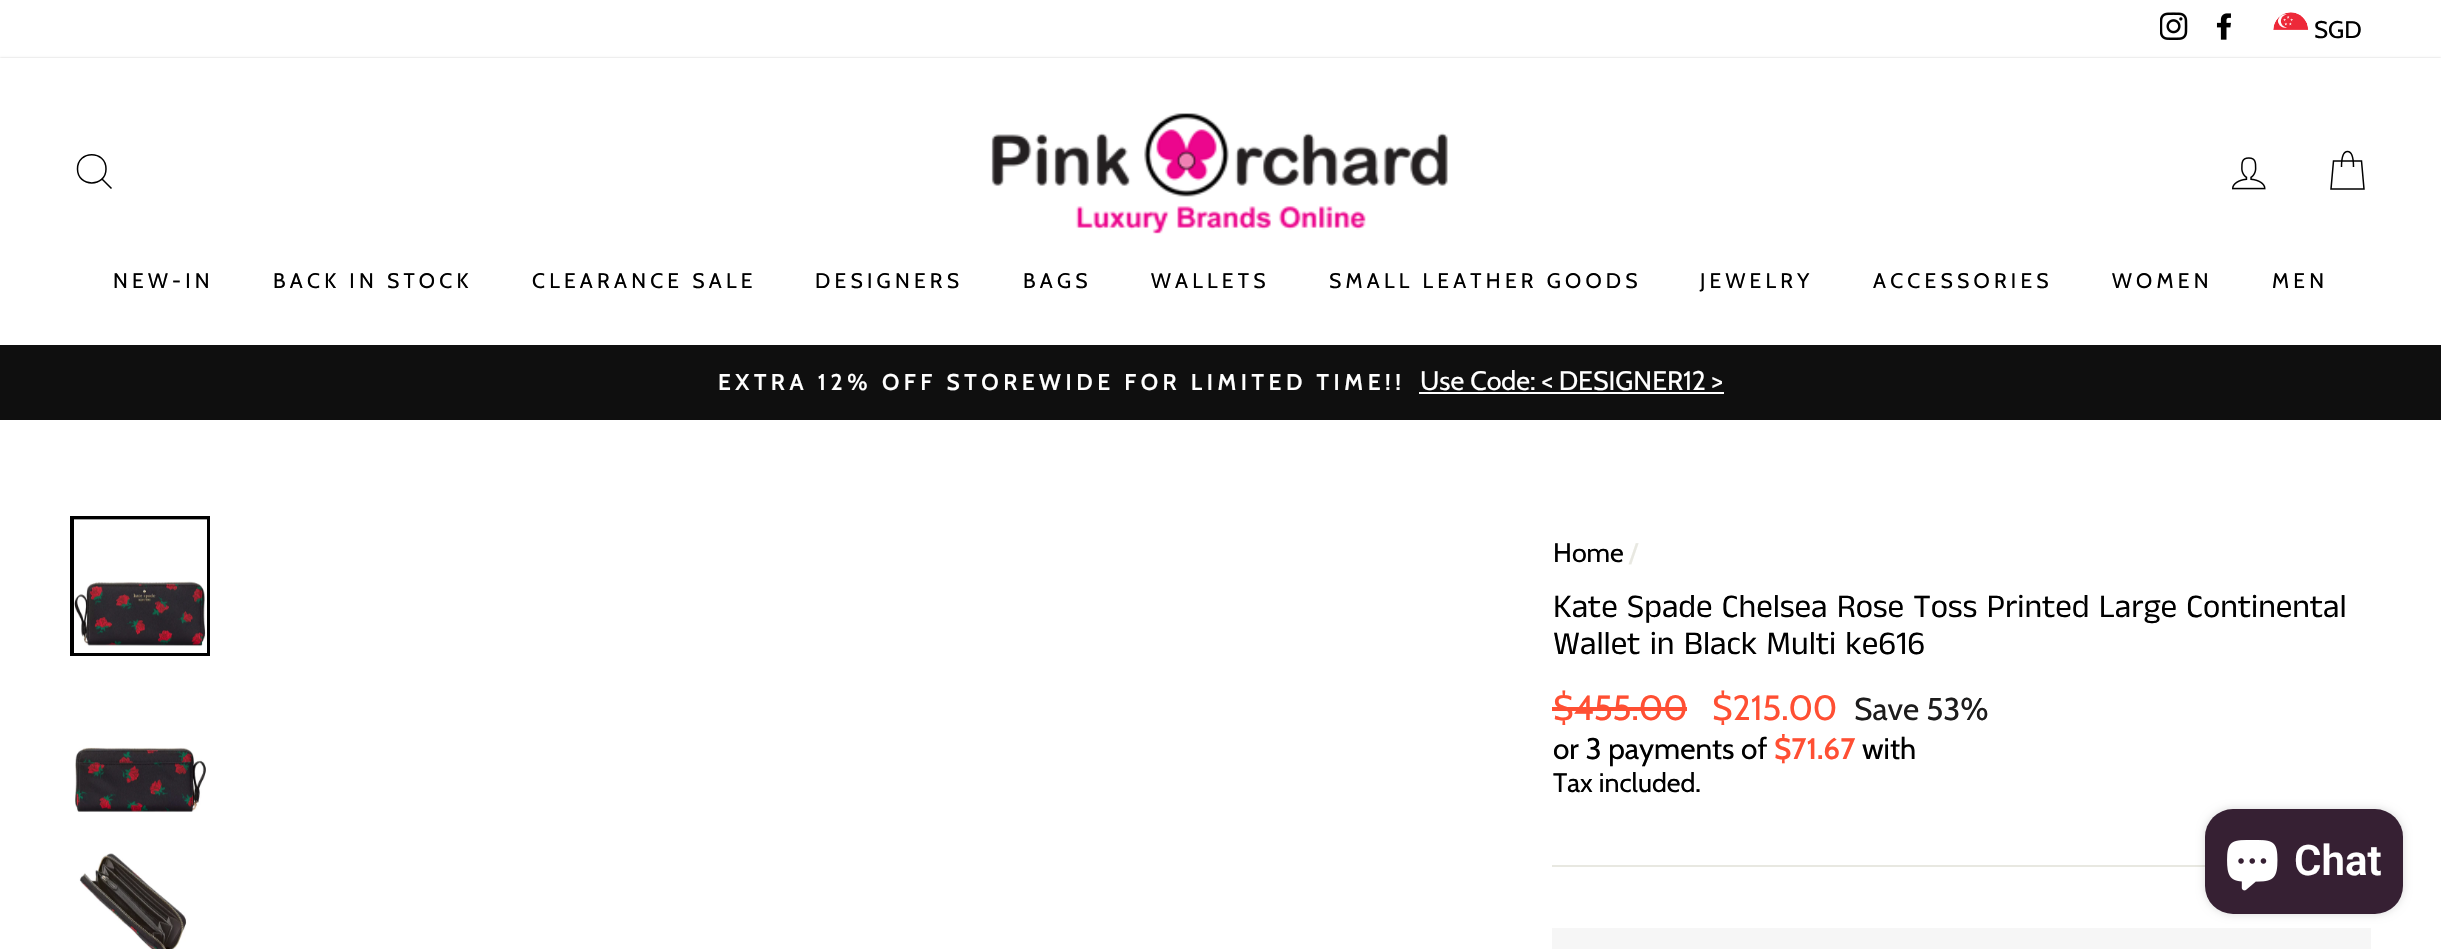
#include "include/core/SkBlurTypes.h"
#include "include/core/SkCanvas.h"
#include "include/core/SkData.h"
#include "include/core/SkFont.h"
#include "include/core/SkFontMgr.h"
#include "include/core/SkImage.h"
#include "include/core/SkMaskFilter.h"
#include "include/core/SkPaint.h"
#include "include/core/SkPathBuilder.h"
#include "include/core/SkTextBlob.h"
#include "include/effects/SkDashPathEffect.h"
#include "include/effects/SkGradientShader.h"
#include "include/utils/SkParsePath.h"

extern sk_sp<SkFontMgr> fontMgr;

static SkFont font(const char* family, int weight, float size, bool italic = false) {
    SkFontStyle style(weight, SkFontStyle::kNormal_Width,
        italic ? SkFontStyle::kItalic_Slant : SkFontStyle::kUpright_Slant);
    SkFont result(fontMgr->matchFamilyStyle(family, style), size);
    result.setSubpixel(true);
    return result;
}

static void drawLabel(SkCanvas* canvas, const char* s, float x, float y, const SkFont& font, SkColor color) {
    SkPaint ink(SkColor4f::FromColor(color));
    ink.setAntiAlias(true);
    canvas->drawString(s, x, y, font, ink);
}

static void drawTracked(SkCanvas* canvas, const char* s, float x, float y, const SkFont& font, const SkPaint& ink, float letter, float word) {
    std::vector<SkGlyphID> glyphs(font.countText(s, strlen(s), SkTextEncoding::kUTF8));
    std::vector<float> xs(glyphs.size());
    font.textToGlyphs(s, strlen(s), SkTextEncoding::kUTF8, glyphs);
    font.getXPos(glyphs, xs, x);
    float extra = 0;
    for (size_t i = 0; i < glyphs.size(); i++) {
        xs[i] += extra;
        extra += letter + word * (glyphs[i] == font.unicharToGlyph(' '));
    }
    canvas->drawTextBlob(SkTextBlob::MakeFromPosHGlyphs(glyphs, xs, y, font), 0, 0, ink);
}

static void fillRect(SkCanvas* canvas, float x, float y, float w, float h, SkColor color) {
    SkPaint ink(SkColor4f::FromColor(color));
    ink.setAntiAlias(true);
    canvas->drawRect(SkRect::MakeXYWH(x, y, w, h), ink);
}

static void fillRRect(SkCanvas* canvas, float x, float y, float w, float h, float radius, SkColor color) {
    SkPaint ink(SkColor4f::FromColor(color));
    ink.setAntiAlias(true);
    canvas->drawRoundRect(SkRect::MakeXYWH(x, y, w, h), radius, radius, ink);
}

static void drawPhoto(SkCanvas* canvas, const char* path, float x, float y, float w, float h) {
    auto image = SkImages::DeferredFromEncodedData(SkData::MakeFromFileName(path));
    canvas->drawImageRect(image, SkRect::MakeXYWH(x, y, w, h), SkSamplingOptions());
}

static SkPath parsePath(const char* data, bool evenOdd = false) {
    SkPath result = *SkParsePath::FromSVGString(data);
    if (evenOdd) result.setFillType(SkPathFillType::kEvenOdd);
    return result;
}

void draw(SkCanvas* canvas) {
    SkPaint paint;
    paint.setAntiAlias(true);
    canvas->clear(0xFFFFFFFF);
    drawPhoto(canvas, "assets/img1.png", 2160, 12, 28, 28);
    drawPhoto(canvas, "assets/img2.png", 2216, 13, 15, 27);
    drawPhoto(canvas, "assets/img3.png", 2273, 12, 36, 18);
    SkFont font1 = font("Cabin", 400, 24);
    drawLabel(canvas, "SGD", 2314, 38, font1, 0xFF000000);
    paint.setColor(0x33000000);
    paint.setMaskFilter(SkMaskFilter::MakeBlur(kNormal_SkBlurStyle, 1));
    canvas->drawRect(SkRect::MakeXYWH(0, 58, 2441, 287), paint);
    paint.setMaskFilter(nullptr);
    fillRect(canvas, 0, 58, 2441, 287, 0xFFFFFFFF);
    paint.setStroke(true);
    paint.setStrokeWidth(1.5f);
    paint.setColor(0xFF000000);
    canvas->drawPath(parsePath("M106 169C106 187.5 77.5 187.5 77.5 169C77.5 150 106 150 106 169ZM111.5 188.5L102 179"), paint);
    drawPhoto(canvas, "assets/img4.png", 991, 113, 457, 121);
    drawPhoto(canvas, "assets/img5.png", 2232, 157, 34, 33);
    canvas->drawPath(parsePath("M2341.5 167C2341.5 155 2344 151.5 2347.5 151.5C2351 151.5 2353.5 155 2353.5 167M2333.5 161H2361.5L2364 189H2331Z"), paint);
    SkFont font2 = font("Cabin", 400, 21);
    paint.setStroke(false);
    drawTracked(canvas, "NEW-IN", 113, 288, font2, paint, 4.25f, 0);
    drawTracked(canvas, "BACK IN STOCK", 273, 288, font2, paint, 4.25f, 0);
    drawTracked(canvas, "CLEARANCE SALE", 532, 288, font2, paint, 4.25f, 0);
    drawTracked(canvas, "DESIGNERS", 815, 288, font2, paint, 4.25f, 0);
    drawTracked(canvas, "BAGS", 1023, 288, font2, paint, 4.25f, 0);
    drawTracked(canvas, "WALLETS", 1151, 288, font2, paint, 4.25f, 0);
    drawTracked(canvas, "SMALL LEATHER GOODS", 1329, 288, font2, paint, 4.25f, 0);
    drawTracked(canvas, "JEWELRY", 1700, 288, font2, paint, 4.25f, 0);
    drawTracked(canvas, "ACCESSORIES", 1873, 288, font2, paint, 4.25f, 0);
    drawTracked(canvas, "WOMEN", 2112, 288, font2, paint, 4.25f, 0);
    drawTracked(canvas, "MEN", 2272, 288, font2, paint, 4.25f, 0);
    fillRect(canvas, 0, 345, 2441, 75, 0xFF0F0F0F);
    SkFont font3 = font("Cabin", 600, 22.75f);
    paint.setColor(0xFFFFFFFF);
    drawTracked(canvas, "EXTRA 12% OFF STOREWIDE FOR LIMITED TIME!!", 718, 390, font3, paint, 4.55f, 0);
    SkFont font4 = font("Cabin", 400, 26.75f);
    drawLabel(canvas, "Use Code: < DESIGNER12 >", 1420, 390, font4, 0xFFFFFFFF);
    fillRect(canvas, 1419, 392, 305, 2, 0xFFFFFFFF);
    paint.setStroke(true);
    paint.setStrokeWidth(4);
    paint.setColor(0xFF000000);
    canvas->drawRect(SkRect::MakeXYWH(72, 518, 136, 136), paint);
    fillRect(canvas, 74, 520, 133, 133, 0xFFFFFFFF);
    drawPhoto(canvas, "assets/img6.png", 74, 519, 133, 128);
    drawPhoto(canvas, "assets/img7.png", 75, 747, 131, 66);
    drawPhoto(canvas, "assets/img8.png", 79, 853, 108, 96);
    drawLabel(canvas, "Home", 1553, 562, font4, 0xFF000000);
    drawLabel(canvas, "/", 1629, 562, font4, 0xFFE8E8E1);
    SkFont font5 = font("Anek Tamil", 400, 33.1f);
    drawLabel(canvas, "Kate Spade Chelsea Rose Toss Printed Large Continental", 1553, 617, font5, 0xFF000000);
    drawLabel(canvas, "Wallet in Black Multi ke616", 1553, 654, font5, 0xFF000000);
    SkFont font6 = font("Cabin", 400, 35);
    drawLabel(canvas, "$455.00", 1553, 720, font6, 0xFFFF4F33);
    fillRect(canvas, 1552, 707, 135, 4, 0xFFFF4F33);
    drawLabel(canvas, "$215.00", 1712, 720, font6, 0xFFFF4F33);
    SkFont font7 = font("Cabin", 400, 31.5f);
    drawLabel(canvas, "Save 53%", 1854, 720, font7, 0xFF1D1C1C);
    SkFont font8 = font("Cabin", 400, 29.75f);
    drawLabel(canvas, "or 3 payments of", 1553, 759, font8, 0xFF000000);
    SkFont font9 = font("Cabin", 600, 29.75f);
    drawLabel(canvas, "$71.67", 1774, 759, font9, 0xFFFF4F33);
    drawLabel(canvas, "with", 1862, 759, font8, 0xFF000000);
    drawLabel(canvas, "Tax included.", 1553, 792, font4, 0xFF000000);
    fillRect(canvas, 1552, 865, 653, 2, 0xFFE8E8E1);
    fillRect(canvas, 1552, 928, 819, 21, 0xFFF6F6F6);
    paint.setStroke(false);
    paint.setColor(0x26000000);
    paint.setMaskFilter(SkMaskFilter::MakeBlur(kNormal_SkBlurStyle, 4.5f));
    canvas->drawRoundRect(SkRect::MakeXYWH(2205, 809, 198, 105), 28, 28, paint);
    paint.setMaskFilter(nullptr);
    fillRRect(canvas, 2205, 809, 198, 105, 28, 0xFF362033);
    drawPhoto(canvas, "assets/img9.png", 2227, 840, 51, 51);
    SkFont font10 = font("Roboto", 600, 42);
    drawLabel(canvas, "Chat", 2294, 875, font10, 0xFFFFFFFF);
}
